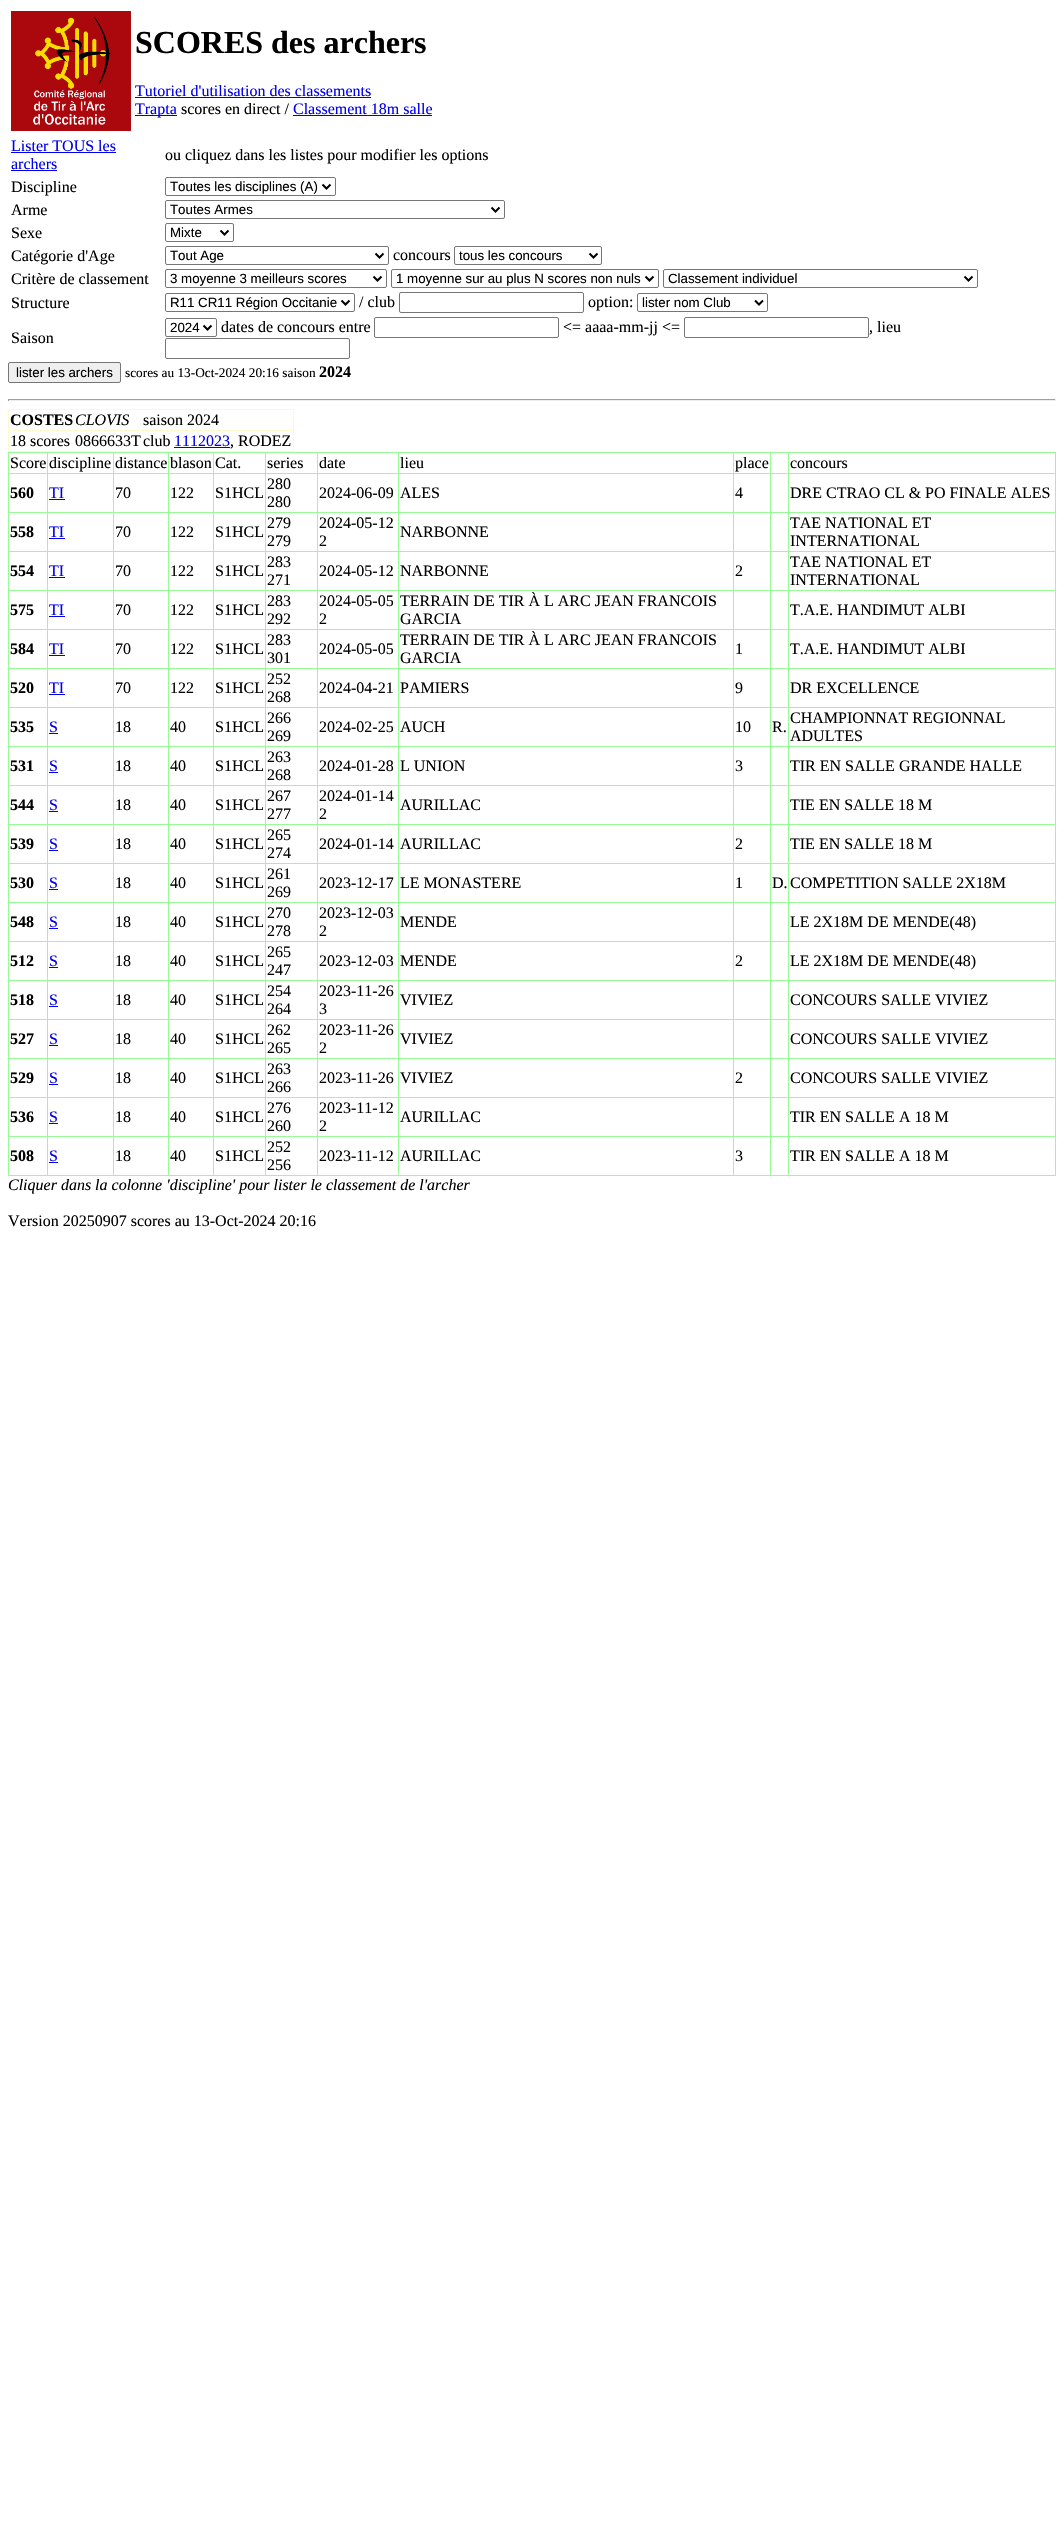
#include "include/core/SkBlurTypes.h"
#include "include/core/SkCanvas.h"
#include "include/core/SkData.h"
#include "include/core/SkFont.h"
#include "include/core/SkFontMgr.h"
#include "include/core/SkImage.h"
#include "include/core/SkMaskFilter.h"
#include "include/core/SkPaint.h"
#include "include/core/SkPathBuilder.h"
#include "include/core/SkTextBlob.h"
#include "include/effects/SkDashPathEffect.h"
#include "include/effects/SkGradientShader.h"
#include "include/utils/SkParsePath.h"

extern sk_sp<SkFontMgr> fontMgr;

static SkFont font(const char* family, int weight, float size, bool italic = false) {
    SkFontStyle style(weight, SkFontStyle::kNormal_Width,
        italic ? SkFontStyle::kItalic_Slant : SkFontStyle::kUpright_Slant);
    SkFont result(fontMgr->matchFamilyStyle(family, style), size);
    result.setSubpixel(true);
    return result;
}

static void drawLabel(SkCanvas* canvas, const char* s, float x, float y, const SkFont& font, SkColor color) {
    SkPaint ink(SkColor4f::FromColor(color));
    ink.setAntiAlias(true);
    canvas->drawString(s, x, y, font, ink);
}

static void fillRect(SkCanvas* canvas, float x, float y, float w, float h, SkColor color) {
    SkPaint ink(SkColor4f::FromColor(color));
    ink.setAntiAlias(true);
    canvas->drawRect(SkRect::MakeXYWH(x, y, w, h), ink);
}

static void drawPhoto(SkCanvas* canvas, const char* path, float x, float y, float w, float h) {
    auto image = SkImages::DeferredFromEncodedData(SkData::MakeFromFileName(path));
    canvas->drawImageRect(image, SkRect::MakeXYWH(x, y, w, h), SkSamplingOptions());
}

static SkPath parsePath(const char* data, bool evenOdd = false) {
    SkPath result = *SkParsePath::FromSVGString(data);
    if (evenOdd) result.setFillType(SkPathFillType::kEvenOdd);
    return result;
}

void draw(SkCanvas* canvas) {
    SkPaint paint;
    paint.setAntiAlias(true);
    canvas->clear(0xFFFFFFFF);
    drawPhoto(canvas, "assets/img1.png", 11, 11, 120, 120);
    SkFont font1 = font("Liberation Serif", 700, 32);
    drawLabel(canvas, "SCORES des archers", 135, 53, font1, 0xFF000000);
    SkFont font2 = font("Liberation Serif", 400, 16);
    drawLabel(canvas, "Tutoriel d'utilisation des classements", 135, 96, font2, 0xFF0000EE);
    fillRect(canvas, 135, 97, 236, 1, 0xFF0000EE);
    fillRect(canvas, 135, 115, 42, 1, 0xFF0000EE);
    drawLabel(canvas, "Trapta", 135, 114, font2, 0xFF0000EE);
    drawLabel(canvas, "scores en direct /", 181, 114, font2, 0xFF000000);
    drawLabel(canvas, "Classement 18m salle", 293, 114, font2, 0xFF0000EE);
    fillRect(canvas, 293, 115, 139, 1, 0xFF0000EE);
    drawLabel(canvas, "Lister TOUS les", 11, 151, font2, 0xFF0000EE);
    fillRect(canvas, 11, 152, 105, 1, 0xFF0000EE);
    drawLabel(canvas, "archers", 11, 169, font2, 0xFF0000EE);
    fillRect(canvas, 11, 170, 46, 1, 0xFF0000EE);
    drawLabel(canvas, "ou cliquez dans les listes pour modifier les options", 165, 160, font2, 0xFF000000);
    drawLabel(canvas, "Discipline", 11, 192, font2, 0xFF000000);
    paint.setStroke(true);
    paint.setStrokeWidth(1);
    paint.setColor(0xFF767676);
    canvas->drawRoundRect(SkRect::MakeXYWH(165.5f, 177.5f, 170, 18), 1.5f, 1.5f, paint);
    paint.setStrokeWidth(2);
    paint.setColor(0xFF000000);
    canvas->drawPath(parsePath("M322.5 184.5L326.5 188.5L330.5 184.5"), paint);
    SkFont font3 = font("Liberation Sans", 400, 13.3f);
    drawLabel(canvas, "Toutes les disciplines (A)", 170, 191, font3, 0xFF000000);
    drawLabel(canvas, "Arme", 11, 215, font2, 0xFF000000);
    paint.setStrokeWidth(1);
    paint.setColor(0xFF767676);
    canvas->drawRoundRect(SkRect::MakeXYWH(165.5f, 200.5f, 339, 18), 1.5f, 1.5f, paint);
    paint.setStrokeWidth(2);
    paint.setColor(0xFF000000);
    canvas->drawPath(parsePath("M491.5 207.5L495.5 211.5L499.5 207.5"), paint);
    drawLabel(canvas, "Toutes Armes", 170, 214, font3, 0xFF000000);
    drawLabel(canvas, "Sexe", 11, 238, font2, 0xFF000000);
    paint.setStrokeWidth(1);
    paint.setColor(0xFF767676);
    canvas->drawRoundRect(SkRect::MakeXYWH(165.5f, 223.5f, 68, 18), 1.5f, 1.5f, paint);
    paint.setStrokeWidth(2);
    paint.setColor(0xFF000000);
    canvas->drawPath(parsePath("M220.5 230.5L224.5 234.5L228.5 230.5"), paint);
    drawLabel(canvas, "Mixte", 170, 237, font3, 0xFF000000);
    drawLabel(canvas, "Catégorie d'Age", 11, 261, font2, 0xFF000000);
    paint.setStrokeWidth(1);
    paint.setColor(0xFF767676);
    canvas->drawRoundRect(SkRect::MakeXYWH(165.5f, 246.5f, 223, 18), 1.5f, 1.5f, paint);
    paint.setStrokeWidth(2);
    paint.setColor(0xFF000000);
    canvas->drawPath(parsePath("M375.5 253.5L379.5 257.5L383.5 253.5"), paint);
    drawLabel(canvas, "Tout Age", 170, 260, font3, 0xFF000000);
    drawLabel(canvas, "concours", 393, 260, font2, 0xFF000000);
    paint.setStrokeWidth(1);
    paint.setColor(0xFF767676);
    canvas->drawRoundRect(SkRect::MakeXYWH(454.5f, 246.5f, 147, 18), 1.5f, 1.5f, paint);
    paint.setStrokeWidth(2);
    paint.setColor(0xFF000000);
    canvas->drawPath(parsePath("M589.5 253.5L593.5 257.5L597.5 253.5"), paint);
    drawLabel(canvas, "tous les concours", 459, 260, font3, 0xFF000000);
    drawLabel(canvas, "Critère de classement", 11, 284, font2, 0xFF000000);
    paint.setStrokeWidth(1);
    paint.setColor(0xFF767676);
    canvas->drawRoundRect(SkRect::MakeXYWH(165.5f, 269.5f, 221, 18), 1.5f, 1.5f, paint);
    paint.setStrokeWidth(2);
    paint.setColor(0xFF000000);
    canvas->drawPath(parsePath("M373.5 276.5L377.5 280.5L381.5 276.5"), paint);
    drawLabel(canvas, "3 moyenne 3 meilleurs scores", 170, 283, font3, 0xFF000000);
    paint.setStrokeWidth(1);
    paint.setColor(0xFF767676);
    canvas->drawRoundRect(SkRect::MakeXYWH(391.5f, 269.5f, 267, 18), 1.5f, 1.5f, paint);
    paint.setStrokeWidth(2);
    paint.setColor(0xFF000000);
    canvas->drawPath(parsePath("M645.5 276.5L649.5 280.5L653.5 276.5"), paint);
    drawLabel(canvas, "1 moyenne sur au plus N scores non nuls", 396, 283, font3, 0xFF000000);
    paint.setStrokeWidth(1);
    paint.setColor(0xFF767676);
    canvas->drawRoundRect(SkRect::MakeXYWH(663.5f, 269.5f, 314, 18), 1.5f, 1.5f, paint);
    paint.setStrokeWidth(2);
    paint.setColor(0xFF000000);
    canvas->drawPath(parsePath("M964.5 276.5L968.5 280.5L972.5 276.5"), paint);
    drawLabel(canvas, "Classement individuel", 668, 283, font3, 0xFF000000);
    drawLabel(canvas, "Structure", 11, 308, font2, 0xFF000000);
    paint.setStrokeWidth(1);
    paint.setColor(0xFF767676);
    canvas->drawRoundRect(SkRect::MakeXYWH(165.5f, 293.5f, 189, 18), 1.5f, 1.5f, paint);
    paint.setStrokeWidth(2);
    paint.setColor(0xFF000000);
    canvas->drawPath(parsePath("M341.5 300.5L345.5 304.5L349.5 300.5"), paint);
    drawLabel(canvas, "R11 CR11 Région Occitanie", 170, 307, font3, 0xFF000000);
    drawLabel(canvas, "/ club", 359, 307, font2, 0xFF000000);
    paint.setStrokeWidth(1);
    paint.setColor(0xFF767676);
    canvas->drawRoundRect(SkRect::MakeXYWH(399.5f, 292.5f, 184, 20), 1.5f, 1.5f, paint);
    drawLabel(canvas, "option:", 588, 307, font2, 0xFF000000);
    canvas->drawRoundRect(SkRect::MakeXYWH(637.5f, 293.5f, 130, 18), 1.5f, 1.5f, paint);
    paint.setStrokeWidth(2);
    paint.setColor(0xFF000000);
    canvas->drawPath(parsePath("M755 300.5L759 304.5L763 300.5"), paint);
    drawLabel(canvas, "lister nom Club", 642, 307, font3, 0xFF000000);
    paint.setStrokeWidth(1);
    paint.setColor(0xFF767676);
    canvas->drawRoundRect(SkRect::MakeXYWH(165.5f, 318.5f, 51, 18), 1.5f, 1.5f, paint);
    paint.setStrokeWidth(2);
    paint.setColor(0xFF000000);
    canvas->drawPath(parsePath("M203.5 325.5L207.5 329.5L211.5 325.5"), paint);
    drawLabel(canvas, "2024", 170, 332, font3, 0xFF000000);
    drawLabel(canvas, "dates de concours entre", 221, 332, font2, 0xFF000000);
    paint.setStrokeWidth(1);
    paint.setColor(0xFF767676);
    canvas->drawRoundRect(SkRect::MakeXYWH(374.5f, 317.5f, 184, 20), 1.5f, 1.5f, paint);
    drawLabel(canvas, "<= aaaa-mm-jj <=", 563, 332, font2, 0xFF000000);
    canvas->drawRoundRect(SkRect::MakeXYWH(684.5f, 317.5f, 184, 20), 1.5f, 1.5f, paint);
    drawLabel(canvas, ", lieu", 869, 332, font2, 0xFF000000);
    canvas->drawRoundRect(SkRect::MakeXYWH(165.5f, 338.5f, 184, 20), 1.5f, 1.5f, paint);
    drawLabel(canvas, "Saison", 11, 343, font2, 0xFF000000);
    paint.setStroke(false);
    paint.setColor(0xFFEFEFEF);
    canvas->drawRoundRect(SkRect::MakeXYWH(8.5f, 362.5f, 112, 20), 1.5f, 1.5f, paint);
    paint.setStroke(true);
    paint.setColor(0xFF767676);
    canvas->drawRoundRect(SkRect::MakeXYWH(8.5f, 362.5f, 112, 20), 1.5f, 1.5f, paint);
    drawLabel(canvas, "lister les archers", 16, 377, font3, 0xFF000000);
    SkFont font4 = font("Liberation Serif", 400, 13.3f);
    drawLabel(canvas, "scores au 13-Oct-2024 20:16 saison", 125, 377, font4, 0xFF000000);
    SkFont font5 = font("Liberation Serif", 700, 16);
    drawLabel(canvas, "2024", 319, 377, font5, 0xFF000000);
    fillRect(canvas, 8, 399, 1048, 1, 0xFF9F9F9F);
    fillRect(canvas, 1055, 399, 1, 2, 0xFFEEEEEE);
    fillRect(canvas, 8, 400, 1048, 1, 0xFFEEEEEE);
    fillRect(canvas, 8, 399, 1, 2, 0xFF9F9F9F);
    fillRect(canvas, 8, 409, 286, 1, 0xFFFFFACD);
    fillRect(canvas, 8, 430, 286, 1, 0xFFFFFACD);
    fillRect(canvas, 293, 430, 1, 22, 0xFFFFFACD);
    fillRect(canvas, 293, 409, 1, 22, 0xFFFFFACD);
    fillRect(canvas, 8, 451, 286, 1, 0xFFFFFACD);
    fillRect(canvas, 8, 430, 1, 22, 0xFFFFFACD);
    fillRect(canvas, 8, 409, 1, 22, 0xFFFFFACD);
    drawLabel(canvas, "COSTES", 10, 425, font5, 0xFF000000);
    SkFont font6 = font("Liberation Serif", 400, 16, true);
    drawLabel(canvas, "CLOVIS", 75, 425, font6, 0xFF000000);
    drawLabel(canvas, "saison 2024", 143, 425, font2, 0xFF000000);
    drawLabel(canvas, "18 scores", 10, 446, font2, 0xFF000000);
    drawLabel(canvas, "0866633T", 75, 446, font2, 0xFF000000);
    drawLabel(canvas, "club", 143, 446, font2, 0xFF000000);
    drawLabel(canvas, "1112023", 174, 446, font2, 0xFF0000EE);
    fillRect(canvas, 174, 447, 56, 1, 0xFF0000EE);
    drawLabel(canvas, ", RODEZ", 230, 446, font2, 0xFF000000);
    fillRect(canvas, 8, 452, 1048, 1, 0xFF98FB98);
    fillRect(canvas, 1055, 452, 1, 724, 0xFF98FB98);
    fillRect(canvas, 8, 1175, 1048, 1, 0xFF98FB98);
    fillRect(canvas, 8, 452, 1, 724, 0xFF98FB98);
    drawLabel(canvas, "Score", 10, 468, font2, 0xFF000000);
    fillRect(canvas, 788, 473, 268, 1, 0xFF98FB98);
    fillRect(canvas, 788, 512, 268, 1, 0xFF98FB98);
    fillRect(canvas, 788, 551, 268, 1, 0xFF98FB98);
    fillRect(canvas, 788, 590, 268, 1, 0xFF98FB98);
    fillRect(canvas, 788, 629, 268, 1, 0xFF98FB98);
    fillRect(canvas, 788, 668, 268, 1, 0xFF98FB98);
    fillRect(canvas, 788, 707, 268, 1, 0xFF98FB98);
    fillRect(canvas, 788, 746, 268, 1, 0xFF98FB98);
    fillRect(canvas, 788, 785, 268, 1, 0xFF98FB98);
    fillRect(canvas, 788, 824, 268, 1, 0xFF98FB98);
    fillRect(canvas, 788, 863, 268, 1, 0xFF98FB98);
    fillRect(canvas, 788, 902, 268, 1, 0xFF98FB98);
    fillRect(canvas, 788, 941, 268, 1, 0xFF98FB98);
    fillRect(canvas, 788, 980, 268, 1, 0xFF98FB98);
    fillRect(canvas, 788, 1019, 268, 1, 0xFF98FB98);
    fillRect(canvas, 788, 1058, 268, 1, 0xFF98FB98);
    fillRect(canvas, 788, 1097, 268, 1, 0xFF98FB98);
    fillRect(canvas, 788, 1136, 268, 1, 0xFF98FB98);
    fillRect(canvas, 788, 1136, 1, 40, 0xFF98FB98);
    fillRect(canvas, 770, 1136, 19, 1, 0xFF98FB98);
    fillRect(canvas, 788, 1097, 1, 40, 0xFF98FB98);
    fillRect(canvas, 770, 1097, 19, 1, 0xFF98FB98);
    fillRect(canvas, 788, 1058, 1, 40, 0xFF98FB98);
    fillRect(canvas, 770, 1058, 19, 1, 0xFF98FB98);
    fillRect(canvas, 788, 1019, 1, 40, 0xFF98FB98);
    fillRect(canvas, 770, 1019, 19, 1, 0xFF98FB98);
    fillRect(canvas, 788, 980, 1, 40, 0xFF98FB98);
    fillRect(canvas, 770, 980, 19, 1, 0xFF98FB98);
    fillRect(canvas, 788, 941, 1, 40, 0xFF98FB98);
    fillRect(canvas, 770, 941, 19, 1, 0xFF98FB98);
    fillRect(canvas, 788, 902, 1, 40, 0xFF98FB98);
    fillRect(canvas, 770, 902, 19, 1, 0xFF98FB98);
    fillRect(canvas, 788, 863, 1, 40, 0xFF98FB98);
    fillRect(canvas, 770, 863, 19, 1, 0xFF98FB98);
    fillRect(canvas, 788, 824, 1, 40, 0xFF98FB98);
    fillRect(canvas, 770, 824, 19, 1, 0xFF98FB98);
    fillRect(canvas, 788, 785, 1, 40, 0xFF98FB98);
    fillRect(canvas, 770, 785, 19, 1, 0xFF98FB98);
    fillRect(canvas, 788, 746, 1, 40, 0xFF98FB98);
    fillRect(canvas, 770, 746, 19, 1, 0xFF98FB98);
    fillRect(canvas, 788, 707, 1, 40, 0xFF98FB98);
    fillRect(canvas, 770, 707, 19, 1, 0xFF98FB98);
    fillRect(canvas, 788, 668, 1, 40, 0xFF98FB98);
    fillRect(canvas, 770, 668, 19, 1, 0xFF98FB98);
    fillRect(canvas, 788, 629, 1, 40, 0xFF98FB98);
    fillRect(canvas, 770, 629, 19, 1, 0xFF98FB98);
    fillRect(canvas, 788, 590, 1, 40, 0xFF98FB98);
    fillRect(canvas, 770, 590, 19, 1, 0xFF98FB98);
    fillRect(canvas, 788, 551, 1, 40, 0xFF98FB98);
    fillRect(canvas, 770, 551, 19, 1, 0xFF98FB98);
    fillRect(canvas, 788, 512, 1, 40, 0xFF98FB98);
    fillRect(canvas, 770, 512, 19, 1, 0xFF98FB98);
    fillRect(canvas, 788, 473, 1, 40, 0xFF98FB98);
    fillRect(canvas, 770, 473, 19, 1, 0xFF98FB98);
    fillRect(canvas, 770, 1136, 1, 40, 0xFF98FB98);
    fillRect(canvas, 733, 1136, 38, 1, 0xFF98FB98);
    fillRect(canvas, 770, 1097, 1, 40, 0xFF98FB98);
    fillRect(canvas, 733, 1097, 38, 1, 0xFF98FB98);
    fillRect(canvas, 770, 1058, 1, 40, 0xFF98FB98);
    fillRect(canvas, 733, 1058, 38, 1, 0xFF98FB98);
    fillRect(canvas, 770, 1019, 1, 40, 0xFF98FB98);
    fillRect(canvas, 733, 1019, 38, 1, 0xFF98FB98);
    fillRect(canvas, 770, 980, 1, 40, 0xFF98FB98);
    fillRect(canvas, 733, 980, 38, 1, 0xFF98FB98);
    fillRect(canvas, 770, 941, 1, 40, 0xFF98FB98);
    fillRect(canvas, 733, 941, 38, 1, 0xFF98FB98);
    fillRect(canvas, 770, 902, 1, 40, 0xFF98FB98);
    fillRect(canvas, 733, 902, 38, 1, 0xFF98FB98);
    fillRect(canvas, 770, 863, 1, 40, 0xFF98FB98);
    fillRect(canvas, 733, 863, 38, 1, 0xFF98FB98);
    fillRect(canvas, 770, 824, 1, 40, 0xFF98FB98);
    fillRect(canvas, 733, 824, 38, 1, 0xFF98FB98);
    fillRect(canvas, 770, 785, 1, 40, 0xFF98FB98);
    fillRect(canvas, 733, 785, 38, 1, 0xFF98FB98);
    fillRect(canvas, 770, 746, 1, 40, 0xFF98FB98);
    fillRect(canvas, 733, 746, 38, 1, 0xFF98FB98);
    fillRect(canvas, 770, 707, 1, 40, 0xFF98FB98);
    fillRect(canvas, 733, 707, 38, 1, 0xFF98FB98);
    fillRect(canvas, 770, 668, 1, 40, 0xFF98FB98);
    fillRect(canvas, 733, 668, 38, 1, 0xFF98FB98);
    fillRect(canvas, 770, 629, 1, 40, 0xFF98FB98);
    fillRect(canvas, 733, 629, 38, 1, 0xFF98FB98);
    fillRect(canvas, 770, 590, 1, 40, 0xFF98FB98);
    fillRect(canvas, 733, 590, 38, 1, 0xFF98FB98);
    fillRect(canvas, 770, 551, 1, 40, 0xFF98FB98);
    fillRect(canvas, 733, 551, 38, 1, 0xFF98FB98);
    fillRect(canvas, 770, 512, 1, 40, 0xFF98FB98);
    fillRect(canvas, 733, 512, 38, 1, 0xFF98FB98);
    fillRect(canvas, 770, 473, 1, 40, 0xFF98FB98);
    fillRect(canvas, 733, 473, 38, 1, 0xFF98FB98);
    fillRect(canvas, 733, 1136, 1, 40, 0xFF98FB98);
    fillRect(canvas, 398, 1136, 336, 1, 0xFF98FB98);
    fillRect(canvas, 733, 1097, 1, 40, 0xFF98FB98);
    fillRect(canvas, 398, 1097, 336, 1, 0xFF98FB98);
    fillRect(canvas, 733, 1058, 1, 40, 0xFF98FB98);
    fillRect(canvas, 398, 1058, 336, 1, 0xFF98FB98);
    fillRect(canvas, 733, 1019, 1, 40, 0xFF98FB98);
    fillRect(canvas, 398, 1019, 336, 1, 0xFF98FB98);
    fillRect(canvas, 733, 980, 1, 40, 0xFF98FB98);
    fillRect(canvas, 398, 980, 336, 1, 0xFF98FB98);
    fillRect(canvas, 733, 941, 1, 40, 0xFF98FB98);
    fillRect(canvas, 398, 941, 336, 1, 0xFF98FB98);
    fillRect(canvas, 733, 902, 1, 40, 0xFF98FB98);
    fillRect(canvas, 398, 902, 336, 1, 0xFF98FB98);
    fillRect(canvas, 733, 863, 1, 40, 0xFF98FB98);
    fillRect(canvas, 398, 863, 336, 1, 0xFF98FB98);
    fillRect(canvas, 733, 824, 1, 40, 0xFF98FB98);
    fillRect(canvas, 398, 824, 336, 1, 0xFF98FB98);
    fillRect(canvas, 733, 785, 1, 40, 0xFF98FB98);
    fillRect(canvas, 398, 785, 336, 1, 0xFF98FB98);
    fillRect(canvas, 733, 746, 1, 40, 0xFF98FB98);
    fillRect(canvas, 398, 746, 336, 1, 0xFF98FB98);
    fillRect(canvas, 733, 707, 1, 40, 0xFF98FB98);
    fillRect(canvas, 398, 707, 336, 1, 0xFF98FB98);
    fillRect(canvas, 733, 668, 1, 40, 0xFF98FB98);
    fillRect(canvas, 398, 668, 336, 1, 0xFF98FB98);
    fillRect(canvas, 733, 629, 1, 40, 0xFF98FB98);
    fillRect(canvas, 398, 629, 336, 1, 0xFF98FB98);
    fillRect(canvas, 733, 590, 1, 40, 0xFF98FB98);
    fillRect(canvas, 398, 590, 336, 1, 0xFF98FB98);
    fillRect(canvas, 733, 551, 1, 40, 0xFF98FB98);
    fillRect(canvas, 398, 551, 336, 1, 0xFF98FB98);
    fillRect(canvas, 733, 512, 1, 40, 0xFF98FB98);
    fillRect(canvas, 398, 512, 336, 1, 0xFF98FB98);
    fillRect(canvas, 733, 473, 1, 40, 0xFF98FB98);
    fillRect(canvas, 398, 473, 336, 1, 0xFF98FB98);
    fillRect(canvas, 398, 1136, 1, 40, 0xFF98FB98);
    fillRect(canvas, 317, 1136, 82, 1, 0xFF98FB98);
    fillRect(canvas, 398, 1097, 1, 40, 0xFF98FB98);
    fillRect(canvas, 317, 1097, 82, 1, 0xFF98FB98);
    fillRect(canvas, 398, 1058, 1, 40, 0xFF98FB98);
    fillRect(canvas, 317, 1058, 82, 1, 0xFF98FB98);
    fillRect(canvas, 398, 1019, 1, 40, 0xFF98FB98);
    fillRect(canvas, 317, 1019, 82, 1, 0xFF98FB98);
    fillRect(canvas, 398, 980, 1, 40, 0xFF98FB98);
    fillRect(canvas, 317, 980, 82, 1, 0xFF98FB98);
    fillRect(canvas, 398, 941, 1, 40, 0xFF98FB98);
    fillRect(canvas, 317, 941, 82, 1, 0xFF98FB98);
    fillRect(canvas, 398, 902, 1, 40, 0xFF98FB98);
    fillRect(canvas, 317, 902, 82, 1, 0xFF98FB98);
    fillRect(canvas, 398, 863, 1, 40, 0xFF98FB98);
    fillRect(canvas, 317, 863, 82, 1, 0xFF98FB98);
    fillRect(canvas, 398, 824, 1, 40, 0xFF98FB98);
    fillRect(canvas, 317, 824, 82, 1, 0xFF98FB98);
    fillRect(canvas, 398, 785, 1, 40, 0xFF98FB98);
    fillRect(canvas, 317, 785, 82, 1, 0xFF98FB98);
    fillRect(canvas, 398, 746, 1, 40, 0xFF98FB98);
    fillRect(canvas, 317, 746, 82, 1, 0xFF98FB98);
    fillRect(canvas, 398, 707, 1, 40, 0xFF98FB98);
    fillRect(canvas, 317, 707, 82, 1, 0xFF98FB98);
    fillRect(canvas, 398, 668, 1, 40, 0xFF98FB98);
    fillRect(canvas, 317, 668, 82, 1, 0xFF98FB98);
    fillRect(canvas, 398, 629, 1, 40, 0xFF98FB98);
    fillRect(canvas, 317, 629, 82, 1, 0xFF98FB98);
    fillRect(canvas, 398, 590, 1, 40, 0xFF98FB98);
    fillRect(canvas, 317, 590, 82, 1, 0xFF98FB98);
    fillRect(canvas, 398, 551, 1, 40, 0xFF98FB98);
    fillRect(canvas, 317, 551, 82, 1, 0xFF98FB98);
    fillRect(canvas, 398, 512, 1, 40, 0xFF98FB98);
    fillRect(canvas, 317, 512, 82, 1, 0xFF98FB98);
    fillRect(canvas, 398, 473, 1, 40, 0xFF98FB98);
    fillRect(canvas, 317, 473, 82, 1, 0xFF98FB98);
    fillRect(canvas, 317, 1136, 1, 40, 0xFF98FB98);
    fillRect(canvas, 265, 1136, 53, 1, 0xFF98FB98);
    fillRect(canvas, 317, 1097, 1, 40, 0xFF98FB98);
    fillRect(canvas, 265, 1097, 53, 1, 0xFF98FB98);
    fillRect(canvas, 317, 1058, 1, 40, 0xFF98FB98);
    fillRect(canvas, 265, 1058, 53, 1, 0xFF98FB98);
    fillRect(canvas, 317, 1019, 1, 40, 0xFF98FB98);
    fillRect(canvas, 265, 1019, 53, 1, 0xFF98FB98);
    fillRect(canvas, 317, 980, 1, 40, 0xFF98FB98);
    fillRect(canvas, 265, 980, 53, 1, 0xFF98FB98);
    fillRect(canvas, 317, 941, 1, 40, 0xFF98FB98);
    fillRect(canvas, 265, 941, 53, 1, 0xFF98FB98);
    fillRect(canvas, 317, 902, 1, 40, 0xFF98FB98);
    fillRect(canvas, 265, 902, 53, 1, 0xFF98FB98);
    fillRect(canvas, 317, 863, 1, 40, 0xFF98FB98);
    fillRect(canvas, 265, 863, 53, 1, 0xFF98FB98);
    fillRect(canvas, 317, 824, 1, 40, 0xFF98FB98);
    fillRect(canvas, 265, 824, 53, 1, 0xFF98FB98);
    fillRect(canvas, 317, 785, 1, 40, 0xFF98FB98);
    fillRect(canvas, 265, 785, 53, 1, 0xFF98FB98);
    fillRect(canvas, 317, 746, 1, 40, 0xFF98FB98);
    fillRect(canvas, 265, 746, 53, 1, 0xFF98FB98);
    fillRect(canvas, 317, 707, 1, 40, 0xFF98FB98);
    fillRect(canvas, 265, 707, 53, 1, 0xFF98FB98);
    fillRect(canvas, 317, 668, 1, 40, 0xFF98FB98);
    fillRect(canvas, 265, 668, 53, 1, 0xFF98FB98);
    fillRect(canvas, 317, 629, 1, 40, 0xFF98FB98);
    fillRect(canvas, 265, 629, 53, 1, 0xFF98FB98);
    fillRect(canvas, 317, 590, 1, 40, 0xFF98FB98);
    fillRect(canvas, 265, 590, 53, 1, 0xFF98FB98);
    fillRect(canvas, 317, 551, 1, 40, 0xFF98FB98);
    fillRect(canvas, 265, 551, 53, 1, 0xFF98FB98);
    fillRect(canvas, 317, 512, 1, 40, 0xFF98FB98);
    fillRect(canvas, 265, 512, 53, 1, 0xFF98FB98);
    fillRect(canvas, 317, 473, 1, 40, 0xFF98FB98);
    fillRect(canvas, 265, 473, 53, 1, 0xFF98FB98);
    fillRect(canvas, 265, 1136, 1, 40, 0xFF98FB98);
    fillRect(canvas, 213, 1136, 53, 1, 0xFF98FB98);
    fillRect(canvas, 265, 1097, 1, 40, 0xFF98FB98);
    fillRect(canvas, 213, 1097, 53, 1, 0xFF98FB98);
    fillRect(canvas, 265, 1058, 1, 40, 0xFF98FB98);
    fillRect(canvas, 213, 1058, 53, 1, 0xFF98FB98);
    fillRect(canvas, 265, 1019, 1, 40, 0xFF98FB98);
    fillRect(canvas, 213, 1019, 53, 1, 0xFF98FB98);
    fillRect(canvas, 265, 980, 1, 40, 0xFF98FB98);
    fillRect(canvas, 213, 980, 53, 1, 0xFF98FB98);
    fillRect(canvas, 265, 941, 1, 40, 0xFF98FB98);
    fillRect(canvas, 213, 941, 53, 1, 0xFF98FB98);
    fillRect(canvas, 265, 902, 1, 40, 0xFF98FB98);
    fillRect(canvas, 213, 902, 53, 1, 0xFF98FB98);
    fillRect(canvas, 265, 863, 1, 40, 0xFF98FB98);
    fillRect(canvas, 213, 863, 53, 1, 0xFF98FB98);
    fillRect(canvas, 265, 824, 1, 40, 0xFF98FB98);
    fillRect(canvas, 213, 824, 53, 1, 0xFF98FB98);
    fillRect(canvas, 265, 785, 1, 40, 0xFF98FB98);
    fillRect(canvas, 213, 785, 53, 1, 0xFF98FB98);
    fillRect(canvas, 265, 746, 1, 40, 0xFF98FB98);
    fillRect(canvas, 213, 746, 53, 1, 0xFF98FB98);
    fillRect(canvas, 265, 707, 1, 40, 0xFF98FB98);
    fillRect(canvas, 213, 707, 53, 1, 0xFF98FB98);
    fillRect(canvas, 265, 668, 1, 40, 0xFF98FB98);
    fillRect(canvas, 213, 668, 53, 1, 0xFF98FB98);
    fillRect(canvas, 265, 629, 1, 40, 0xFF98FB98);
    fillRect(canvas, 213, 629, 53, 1, 0xFF98FB98);
    fillRect(canvas, 265, 590, 1, 40, 0xFF98FB98);
    fillRect(canvas, 213, 590, 53, 1, 0xFF98FB98);
    fillRect(canvas, 265, 551, 1, 40, 0xFF98FB98);
    fillRect(canvas, 213, 551, 53, 1, 0xFF98FB98);
    fillRect(canvas, 265, 512, 1, 40, 0xFF98FB98);
    fillRect(canvas, 213, 512, 53, 1, 0xFF98FB98);
    fillRect(canvas, 265, 473, 1, 40, 0xFF98FB98);
    fillRect(canvas, 213, 473, 53, 1, 0xFF98FB98);
    fillRect(canvas, 213, 1136, 1, 40, 0xFF98FB98);
    fillRect(canvas, 168, 1136, 46, 1, 0xFF98FB98);
    fillRect(canvas, 213, 1097, 1, 40, 0xFF98FB98);
    fillRect(canvas, 168, 1097, 46, 1, 0xFF98FB98);
    fillRect(canvas, 213, 1058, 1, 40, 0xFF98FB98);
    fillRect(canvas, 168, 1058, 46, 1, 0xFF98FB98);
    fillRect(canvas, 213, 1019, 1, 40, 0xFF98FB98);
    fillRect(canvas, 168, 1019, 46, 1, 0xFF98FB98);
    fillRect(canvas, 213, 980, 1, 40, 0xFF98FB98);
    fillRect(canvas, 168, 980, 46, 1, 0xFF98FB98);
    fillRect(canvas, 213, 941, 1, 40, 0xFF98FB98);
    fillRect(canvas, 168, 941, 46, 1, 0xFF98FB98);
    fillRect(canvas, 213, 902, 1, 40, 0xFF98FB98);
    fillRect(canvas, 168, 902, 46, 1, 0xFF98FB98);
    fillRect(canvas, 213, 863, 1, 40, 0xFF98FB98);
    fillRect(canvas, 168, 863, 46, 1, 0xFF98FB98);
    fillRect(canvas, 213, 824, 1, 40, 0xFF98FB98);
    fillRect(canvas, 168, 824, 46, 1, 0xFF98FB98);
    fillRect(canvas, 213, 785, 1, 40, 0xFF98FB98);
    fillRect(canvas, 168, 785, 46, 1, 0xFF98FB98);
    fillRect(canvas, 213, 746, 1, 40, 0xFF98FB98);
    fillRect(canvas, 168, 746, 46, 1, 0xFF98FB98);
    fillRect(canvas, 213, 707, 1, 40, 0xFF98FB98);
    fillRect(canvas, 168, 707, 46, 1, 0xFF98FB98);
    fillRect(canvas, 213, 668, 1, 40, 0xFF98FB98);
    fillRect(canvas, 168, 668, 46, 1, 0xFF98FB98);
    fillRect(canvas, 213, 629, 1, 40, 0xFF98FB98);
    fillRect(canvas, 168, 629, 46, 1, 0xFF98FB98);
    fillRect(canvas, 213, 590, 1, 40, 0xFF98FB98);
    fillRect(canvas, 168, 590, 46, 1, 0xFF98FB98);
    fillRect(canvas, 213, 551, 1, 40, 0xFF98FB98);
    fillRect(canvas, 168, 551, 46, 1, 0xFF98FB98);
    fillRect(canvas, 213, 512, 1, 40, 0xFF98FB98);
    fillRect(canvas, 168, 512, 46, 1, 0xFF98FB98);
    fillRect(canvas, 213, 473, 1, 40, 0xFF98FB98);
    fillRect(canvas, 168, 473, 46, 1, 0xFF98FB98);
    fillRect(canvas, 168, 1136, 1, 40, 0xFF98FB98);
    fillRect(canvas, 113, 1136, 56, 1, 0xFF98FB98);
    fillRect(canvas, 168, 1097, 1, 40, 0xFF98FB98);
    fillRect(canvas, 113, 1097, 56, 1, 0xFF98FB98);
    fillRect(canvas, 168, 1058, 1, 40, 0xFF98FB98);
    fillRect(canvas, 113, 1058, 56, 1, 0xFF98FB98);
    fillRect(canvas, 168, 1019, 1, 40, 0xFF98FB98);
    fillRect(canvas, 113, 1019, 56, 1, 0xFF98FB98);
    fillRect(canvas, 168, 980, 1, 40, 0xFF98FB98);
    fillRect(canvas, 113, 980, 56, 1, 0xFF98FB98);
    fillRect(canvas, 168, 941, 1, 40, 0xFF98FB98);
    fillRect(canvas, 113, 941, 56, 1, 0xFF98FB98);
    fillRect(canvas, 168, 902, 1, 40, 0xFF98FB98);
    fillRect(canvas, 113, 902, 56, 1, 0xFF98FB98);
    fillRect(canvas, 168, 863, 1, 40, 0xFF98FB98);
    fillRect(canvas, 113, 863, 56, 1, 0xFF98FB98);
    fillRect(canvas, 168, 824, 1, 40, 0xFF98FB98);
    fillRect(canvas, 113, 824, 56, 1, 0xFF98FB98);
    fillRect(canvas, 168, 785, 1, 40, 0xFF98FB98);
    fillRect(canvas, 113, 785, 56, 1, 0xFF98FB98);
    fillRect(canvas, 168, 746, 1, 40, 0xFF98FB98);
    fillRect(canvas, 113, 746, 56, 1, 0xFF98FB98);
    fillRect(canvas, 168, 707, 1, 40, 0xFF98FB98);
    fillRect(canvas, 113, 707, 56, 1, 0xFF98FB98);
    fillRect(canvas, 168, 668, 1, 40, 0xFF98FB98);
    fillRect(canvas, 113, 668, 56, 1, 0xFF98FB98);
    fillRect(canvas, 168, 629, 1, 40, 0xFF98FB98);
    fillRect(canvas, 113, 629, 56, 1, 0xFF98FB98);
    fillRect(canvas, 168, 590, 1, 40, 0xFF98FB98);
    fillRect(canvas, 113, 590, 56, 1, 0xFF98FB98);
    fillRect(canvas, 168, 551, 1, 40, 0xFF98FB98);
    fillRect(canvas, 113, 551, 56, 1, 0xFF98FB98);
    fillRect(canvas, 168, 512, 1, 40, 0xFF98FB98);
    fillRect(canvas, 113, 512, 56, 1, 0xFF98FB98);
    fillRect(canvas, 168, 473, 1, 40, 0xFF98FB98);
    fillRect(canvas, 113, 473, 56, 1, 0xFF98FB98);
    fillRect(canvas, 113, 1136, 1, 40, 0xFF98FB98);
    fillRect(canvas, 47, 1136, 67, 1, 0xFF98FB98);
    fillRect(canvas, 113, 1097, 1, 40, 0xFF98FB98);
    fillRect(canvas, 47, 1097, 67, 1, 0xFF98FB98);
    fillRect(canvas, 113, 1058, 1, 40, 0xFF98FB98);
    fillRect(canvas, 47, 1058, 67, 1, 0xFF98FB98);
    fillRect(canvas, 113, 1019, 1, 40, 0xFF98FB98);
    fillRect(canvas, 47, 1019, 67, 1, 0xFF98FB98);
    fillRect(canvas, 113, 980, 1, 40, 0xFF98FB98);
    fillRect(canvas, 47, 980, 67, 1, 0xFF98FB98);
    fillRect(canvas, 113, 941, 1, 40, 0xFF98FB98);
    fillRect(canvas, 47, 941, 67, 1, 0xFF98FB98);
    fillRect(canvas, 113, 902, 1, 40, 0xFF98FB98);
    fillRect(canvas, 47, 902, 67, 1, 0xFF98FB98);
    fillRect(canvas, 113, 863, 1, 40, 0xFF98FB98);
    fillRect(canvas, 47, 863, 67, 1, 0xFF98FB98);
    fillRect(canvas, 113, 824, 1, 40, 0xFF98FB98);
    fillRect(canvas, 47, 824, 67, 1, 0xFF98FB98);
    fillRect(canvas, 113, 785, 1, 40, 0xFF98FB98);
    fillRect(canvas, 47, 785, 67, 1, 0xFF98FB98);
    fillRect(canvas, 113, 746, 1, 40, 0xFF98FB98);
    fillRect(canvas, 47, 746, 67, 1, 0xFF98FB98);
    fillRect(canvas, 113, 707, 1, 40, 0xFF98FB98);
    fillRect(canvas, 47, 707, 67, 1, 0xFF98FB98);
    fillRect(canvas, 113, 668, 1, 40, 0xFF98FB98);
    fillRect(canvas, 47, 668, 67, 1, 0xFF98FB98);
    fillRect(canvas, 113, 629, 1, 40, 0xFF98FB98);
    fillRect(canvas, 47, 629, 67, 1, 0xFF98FB98);
    fillRect(canvas, 113, 590, 1, 40, 0xFF98FB98);
    fillRect(canvas, 47, 590, 67, 1, 0xFF98FB98);
    fillRect(canvas, 113, 551, 1, 40, 0xFF98FB98);
    fillRect(canvas, 47, 551, 67, 1, 0xFF98FB98);
    fillRect(canvas, 113, 512, 1, 40, 0xFF98FB98);
    fillRect(canvas, 47, 512, 67, 1, 0xFF98FB98);
    fillRect(canvas, 113, 473, 1, 40, 0xFF98FB98);
    fillRect(canvas, 47, 473, 67, 1, 0xFF98FB98);
    fillRect(canvas, 47, 1136, 1, 40, 0xFF98FB98);
    fillRect(canvas, 8, 1136, 40, 1, 0xFF98FB98);
    fillRect(canvas, 47, 1097, 1, 40, 0xFF98FB98);
    fillRect(canvas, 8, 1097, 40, 1, 0xFF98FB98);
    fillRect(canvas, 47, 1058, 1, 40, 0xFF98FB98);
    fillRect(canvas, 8, 1058, 40, 1, 0xFF98FB98);
    fillRect(canvas, 47, 1019, 1, 40, 0xFF98FB98);
    fillRect(canvas, 8, 1019, 40, 1, 0xFF98FB98);
    fillRect(canvas, 47, 980, 1, 40, 0xFF98FB98);
    fillRect(canvas, 8, 980, 40, 1, 0xFF98FB98);
    fillRect(canvas, 47, 941, 1, 40, 0xFF98FB98);
    fillRect(canvas, 8, 941, 40, 1, 0xFF98FB98);
    fillRect(canvas, 47, 902, 1, 40, 0xFF98FB98);
    fillRect(canvas, 8, 902, 40, 1, 0xFF98FB98);
    fillRect(canvas, 47, 863, 1, 40, 0xFF98FB98);
    fillRect(canvas, 8, 863, 40, 1, 0xFF98FB98);
    fillRect(canvas, 47, 824, 1, 40, 0xFF98FB98);
    fillRect(canvas, 8, 824, 40, 1, 0xFF98FB98);
    fillRect(canvas, 47, 785, 1, 40, 0xFF98FB98);
    fillRect(canvas, 8, 785, 40, 1, 0xFF98FB98);
    fillRect(canvas, 47, 746, 1, 40, 0xFF98FB98);
    fillRect(canvas, 8, 746, 40, 1, 0xFF98FB98);
    fillRect(canvas, 47, 707, 1, 40, 0xFF98FB98);
    fillRect(canvas, 8, 707, 40, 1, 0xFF98FB98);
    fillRect(canvas, 47, 668, 1, 40, 0xFF98FB98);
    fillRect(canvas, 8, 668, 40, 1, 0xFF98FB98);
    fillRect(canvas, 47, 629, 1, 40, 0xFF98FB98);
    fillRect(canvas, 8, 629, 40, 1, 0xFF98FB98);
    fillRect(canvas, 47, 590, 1, 40, 0xFF98FB98);
    fillRect(canvas, 8, 590, 40, 1, 0xFF98FB98);
    fillRect(canvas, 47, 551, 1, 40, 0xFF98FB98);
    fillRect(canvas, 8, 551, 40, 1, 0xFF98FB98);
    fillRect(canvas, 47, 512, 1, 40, 0xFF98FB98);
    fillRect(canvas, 8, 512, 40, 1, 0xFF98FB98);
    fillRect(canvas, 47, 473, 1, 40, 0xFF98FB98);
    fillRect(canvas, 8, 473, 40, 1, 0xFF98FB98);
    fillRect(canvas, 47, 452, 1, 22, 0xFF98FB98);
    drawLabel(canvas, "discipline", 49, 468, font2, 0xFF000000);
    fillRect(canvas, 113, 452, 1, 22, 0xFF98FB98);
    drawLabel(canvas, "distance", 115, 468, font2, 0xFF000000);
    fillRect(canvas, 168, 452, 1, 22, 0xFF98FB98);
    drawLabel(canvas, "blason", 170, 468, font2, 0xFF000000);
    fillRect(canvas, 213, 452, 1, 22, 0xFF98FB98);
    drawLabel(canvas, "Cat.", 215, 468, font2, 0xFF000000);
    fillRect(canvas, 265, 452, 1, 22, 0xFF98FB98);
    drawLabel(canvas, "series", 267, 468, font2, 0xFF000000);
    fillRect(canvas, 317, 452, 1, 22, 0xFF98FB98);
    drawLabel(canvas, "date", 319, 468, font2, 0xFF000000);
    fillRect(canvas, 398, 452, 1, 22, 0xFF98FB98);
    drawLabel(canvas, "lieu", 400, 468, font2, 0xFF000000);
    fillRect(canvas, 733, 452, 1, 22, 0xFF98FB98);
    drawLabel(canvas, "place", 735, 468, font2, 0xFF000000);
    fillRect(canvas, 770, 452, 1, 22, 0xFF98FB98);
    fillRect(canvas, 788, 452, 1, 22, 0xFF98FB98);
    drawLabel(canvas, "concours", 790, 468, font2, 0xFF000000);
    drawLabel(canvas, "560", 10, 498, font5, 0xFF000000);
    drawLabel(canvas, "TI", 49, 498, font2, 0xFF0000EE);
    fillRect(canvas, 49, 499, 16, 1, 0xFF0000EE);
    drawLabel(canvas, "70", 115, 498, font2, 0xFF000000);
    drawLabel(canvas, "122", 170, 498, font2, 0xFF000000);
    drawLabel(canvas, "S1HCL", 215, 498, font2, 0xFF000000);
    drawLabel(canvas, "280", 267, 489, font2, 0xFF000000);
    drawLabel(canvas, "280", 267, 507, font2, 0xFF000000);
    drawLabel(canvas, "2024-06-09", 319, 498, font2, 0xFF000000);
    drawLabel(canvas, "ALES", 400, 498, font2, 0xFF000000);
    drawLabel(canvas, "4", 735, 498, font2, 0xFF000000);
    drawLabel(canvas, "DRE CTRAO CL & PO FINALE ALES", 790, 498, font2, 0xFF000000);
    drawLabel(canvas, "558", 10, 537, font5, 0xFF000000);
    drawLabel(canvas, "TI", 49, 537, font2, 0xFF0000EE);
    fillRect(canvas, 49, 538, 16, 1, 0xFF0000EE);
    drawLabel(canvas, "70", 115, 537, font2, 0xFF000000);
    drawLabel(canvas, "122", 170, 537, font2, 0xFF000000);
    drawLabel(canvas, "S1HCL", 215, 537, font2, 0xFF000000);
    drawLabel(canvas, "279", 267, 528, font2, 0xFF000000);
    drawLabel(canvas, "279", 267, 546, font2, 0xFF000000);
    drawLabel(canvas, "2024-05-12", 319, 528, font2, 0xFF000000);
    drawLabel(canvas, "2", 319, 546, font2, 0xFF000000);
    drawLabel(canvas, "NARBONNE", 400, 537, font2, 0xFF000000);
    drawLabel(canvas, "TAE NATIONAL ET", 790, 528, font2, 0xFF000000);
    drawLabel(canvas, "INTERNATIONAL", 790, 546, font2, 0xFF000000);
    drawLabel(canvas, "554", 10, 576, font5, 0xFF000000);
    drawLabel(canvas, "TI", 49, 576, font2, 0xFF0000EE);
    fillRect(canvas, 49, 577, 16, 1, 0xFF0000EE);
    drawLabel(canvas, "70", 115, 576, font2, 0xFF000000);
    drawLabel(canvas, "122", 170, 576, font2, 0xFF000000);
    drawLabel(canvas, "S1HCL", 215, 576, font2, 0xFF000000);
    drawLabel(canvas, "283", 267, 567, font2, 0xFF000000);
    drawLabel(canvas, "271", 267, 585, font2, 0xFF000000);
    drawLabel(canvas, "2024-05-12", 319, 576, font2, 0xFF000000);
    drawLabel(canvas, "NARBONNE", 400, 576, font2, 0xFF000000);
    drawLabel(canvas, "2", 735, 576, font2, 0xFF000000);
    drawLabel(canvas, "TAE NATIONAL ET", 790, 567, font2, 0xFF000000);
    drawLabel(canvas, "INTERNATIONAL", 790, 585, font2, 0xFF000000);
    drawLabel(canvas, "575", 10, 615, font5, 0xFF000000);
    drawLabel(canvas, "TI", 49, 615, font2, 0xFF0000EE);
    fillRect(canvas, 49, 616, 16, 1, 0xFF0000EE);
    drawLabel(canvas, "70", 115, 615, font2, 0xFF000000);
    drawLabel(canvas, "122", 170, 615, font2, 0xFF000000);
    drawLabel(canvas, "S1HCL", 215, 615, font2, 0xFF000000);
    drawLabel(canvas, "283", 267, 606, font2, 0xFF000000);
    drawLabel(canvas, "292", 267, 624, font2, 0xFF000000);
    drawLabel(canvas, "2024-05-05", 319, 606, font2, 0xFF000000);
    drawLabel(canvas, "2", 319, 624, font2, 0xFF000000);
    drawLabel(canvas, "TERRAIN DE TIR À L ARC JEAN FRANCOIS", 400, 606, font2, 0xFF000000);
    drawLabel(canvas, "GARCIA", 400, 624, font2, 0xFF000000);
    drawLabel(canvas, "T.A.E. HANDIMUT ALBI", 790, 615, font2, 0xFF000000);
    drawLabel(canvas, "584", 10, 654, font5, 0xFF000000);
    drawLabel(canvas, "TI", 49, 654, font2, 0xFF0000EE);
    fillRect(canvas, 49, 655, 16, 1, 0xFF0000EE);
    drawLabel(canvas, "70", 115, 654, font2, 0xFF000000);
    drawLabel(canvas, "122", 170, 654, font2, 0xFF000000);
    drawLabel(canvas, "S1HCL", 215, 654, font2, 0xFF000000);
    drawLabel(canvas, "283", 267, 645, font2, 0xFF000000);
    drawLabel(canvas, "301", 267, 663, font2, 0xFF000000);
    drawLabel(canvas, "2024-05-05", 319, 654, font2, 0xFF000000);
    drawLabel(canvas, "TERRAIN DE TIR À L ARC JEAN FRANCOIS", 400, 645, font2, 0xFF000000);
    drawLabel(canvas, "GARCIA", 400, 663, font2, 0xFF000000);
    drawLabel(canvas, "1", 735, 654, font2, 0xFF000000);
    drawLabel(canvas, "T.A.E. HANDIMUT ALBI", 790, 654, font2, 0xFF000000);
    drawLabel(canvas, "520", 10, 693, font5, 0xFF000000);
    drawLabel(canvas, "TI", 49, 693, font2, 0xFF0000EE);
    fillRect(canvas, 49, 694, 16, 1, 0xFF0000EE);
    drawLabel(canvas, "70", 115, 693, font2, 0xFF000000);
    drawLabel(canvas, "122", 170, 693, font2, 0xFF000000);
    drawLabel(canvas, "S1HCL", 215, 693, font2, 0xFF000000);
    drawLabel(canvas, "252", 267, 684, font2, 0xFF000000);
    drawLabel(canvas, "268", 267, 702, font2, 0xFF000000);
    drawLabel(canvas, "2024-04-21", 319, 693, font2, 0xFF000000);
    drawLabel(canvas, "PAMIERS", 400, 693, font2, 0xFF000000);
    drawLabel(canvas, "9", 735, 693, font2, 0xFF000000);
    drawLabel(canvas, "DR EXCELLENCE", 790, 693, font2, 0xFF000000);
    drawLabel(canvas, "535", 10, 732, font5, 0xFF000000);
    drawLabel(canvas, "S", 49, 732, font2, 0xFF0000EE);
    fillRect(canvas, 49, 733, 9, 1, 0xFF0000EE);
    drawLabel(canvas, "18", 115, 732, font2, 0xFF000000);
    drawLabel(canvas, "40", 170, 732, font2, 0xFF000000);
    drawLabel(canvas, "S1HCL", 215, 732, font2, 0xFF000000);
    drawLabel(canvas, "266", 267, 723, font2, 0xFF000000);
    drawLabel(canvas, "269", 267, 741, font2, 0xFF000000);
    drawLabel(canvas, "2024-02-25", 319, 732, font2, 0xFF000000);
    drawLabel(canvas, "AUCH", 400, 732, font2, 0xFF000000);
    drawLabel(canvas, "10", 735, 732, font2, 0xFF000000);
    drawLabel(canvas, "R.", 772, 732, font2, 0xFF000000);
    drawLabel(canvas, "CHAMPIONNAT REGIONNAL", 790, 723, font2, 0xFF000000);
    drawLabel(canvas, "ADULTES", 790, 741, font2, 0xFF000000);
    drawLabel(canvas, "531", 10, 771, font5, 0xFF000000);
    drawLabel(canvas, "S", 49, 771, font2, 0xFF0000EE);
    fillRect(canvas, 49, 772, 9, 1, 0xFF0000EE);
    drawLabel(canvas, "18", 115, 771, font2, 0xFF000000);
    drawLabel(canvas, "40", 170, 771, font2, 0xFF000000);
    drawLabel(canvas, "S1HCL", 215, 771, font2, 0xFF000000);
    drawLabel(canvas, "263", 267, 762, font2, 0xFF000000);
    drawLabel(canvas, "268", 267, 780, font2, 0xFF000000);
    drawLabel(canvas, "2024-01-28", 319, 771, font2, 0xFF000000);
    drawLabel(canvas, "L UNION", 400, 771, font2, 0xFF000000);
    drawLabel(canvas, "3", 735, 771, font2, 0xFF000000);
    drawLabel(canvas, "TIR EN SALLE GRANDE HALLE", 790, 771, font2, 0xFF000000);
    drawLabel(canvas, "544", 10, 810, font5, 0xFF000000);
    drawLabel(canvas, "S", 49, 810, font2, 0xFF0000EE);
    fillRect(canvas, 49, 811, 9, 1, 0xFF0000EE);
    drawLabel(canvas, "18", 115, 810, font2, 0xFF000000);
    drawLabel(canvas, "40", 170, 810, font2, 0xFF000000);
    drawLabel(canvas, "S1HCL", 215, 810, font2, 0xFF000000);
    drawLabel(canvas, "267", 267, 801, font2, 0xFF000000);
    drawLabel(canvas, "277", 267, 819, font2, 0xFF000000);
    drawLabel(canvas, "2024-01-14", 319, 801, font2, 0xFF000000);
    drawLabel(canvas, "2", 319, 819, font2, 0xFF000000);
    drawLabel(canvas, "AURILLAC", 400, 810, font2, 0xFF000000);
    drawLabel(canvas, "TIE EN SALLE 18 M", 790, 810, font2, 0xFF000000);
    drawLabel(canvas, "539", 10, 849, font5, 0xFF000000);
    drawLabel(canvas, "S", 49, 849, font2, 0xFF0000EE);
    fillRect(canvas, 49, 850, 9, 1, 0xFF0000EE);
    drawLabel(canvas, "18", 115, 849, font2, 0xFF000000);
    drawLabel(canvas, "40", 170, 849, font2, 0xFF000000);
    drawLabel(canvas, "S1HCL", 215, 849, font2, 0xFF000000);
    drawLabel(canvas, "265", 267, 840, font2, 0xFF000000);
    drawLabel(canvas, "274", 267, 858, font2, 0xFF000000);
    drawLabel(canvas, "2024-01-14", 319, 849, font2, 0xFF000000);
    drawLabel(canvas, "AURILLAC", 400, 849, font2, 0xFF000000);
    drawLabel(canvas, "2", 735, 849, font2, 0xFF000000);
    drawLabel(canvas, "TIE EN SALLE 18 M", 790, 849, font2, 0xFF000000);
    drawLabel(canvas, "530", 10, 888, font5, 0xFF000000);
    drawLabel(canvas, "S", 49, 888, font2, 0xFF0000EE);
    fillRect(canvas, 49, 889, 9, 1, 0xFF0000EE);
    drawLabel(canvas, "18", 115, 888, font2, 0xFF000000);
    drawLabel(canvas, "40", 170, 888, font2, 0xFF000000);
    drawLabel(canvas, "S1HCL", 215, 888, font2, 0xFF000000);
    drawLabel(canvas, "261", 267, 879, font2, 0xFF000000);
    drawLabel(canvas, "269", 267, 897, font2, 0xFF000000);
    drawLabel(canvas, "2023-12-17", 319, 888, font2, 0xFF000000);
    drawLabel(canvas, "LE MONASTERE", 400, 888, font2, 0xFF000000);
    drawLabel(canvas, "1", 735, 888, font2, 0xFF000000);
    drawLabel(canvas, "D.", 772, 888, font2, 0xFF000000);
    drawLabel(canvas, "COMPETITION SALLE 2X18M", 790, 888, font2, 0xFF000000);
    drawLabel(canvas, "548", 10, 927, font5, 0xFF000000);
    drawLabel(canvas, "S", 49, 927, font2, 0xFF0000EE);
    fillRect(canvas, 49, 928, 9, 1, 0xFF0000EE);
    drawLabel(canvas, "18", 115, 927, font2, 0xFF000000);
    drawLabel(canvas, "40", 170, 927, font2, 0xFF000000);
    drawLabel(canvas, "S1HCL", 215, 927, font2, 0xFF000000);
    drawLabel(canvas, "270", 267, 918, font2, 0xFF000000);
    drawLabel(canvas, "278", 267, 936, font2, 0xFF000000);
    drawLabel(canvas, "2023-12-03", 319, 918, font2, 0xFF000000);
    drawLabel(canvas, "2", 319, 936, font2, 0xFF000000);
    drawLabel(canvas, "MENDE", 400, 927, font2, 0xFF000000);
    drawLabel(canvas, "LE 2X18M DE MENDE(48)", 790, 927, font2, 0xFF000000);
    drawLabel(canvas, "512", 10, 966, font5, 0xFF000000);
    drawLabel(canvas, "S", 49, 966, font2, 0xFF0000EE);
    fillRect(canvas, 49, 967, 9, 1, 0xFF0000EE);
    drawLabel(canvas, "18", 115, 966, font2, 0xFF000000);
    drawLabel(canvas, "40", 170, 966, font2, 0xFF000000);
    drawLabel(canvas, "S1HCL", 215, 966, font2, 0xFF000000);
    drawLabel(canvas, "265", 267, 957, font2, 0xFF000000);
    drawLabel(canvas, "247", 267, 975, font2, 0xFF000000);
    drawLabel(canvas, "2023-12-03", 319, 966, font2, 0xFF000000);
    drawLabel(canvas, "MENDE", 400, 966, font2, 0xFF000000);
    drawLabel(canvas, "2", 735, 966, font2, 0xFF000000);
    drawLabel(canvas, "LE 2X18M DE MENDE(48)", 790, 966, font2, 0xFF000000);
    drawLabel(canvas, "518", 10, 1005, font5, 0xFF000000);
    drawLabel(canvas, "S", 49, 1005, font2, 0xFF0000EE);
    fillRect(canvas, 49, 1006, 9, 1, 0xFF0000EE);
    drawLabel(canvas, "18", 115, 1005, font2, 0xFF000000);
    drawLabel(canvas, "40", 170, 1005, font2, 0xFF000000);
    drawLabel(canvas, "S1HCL", 215, 1005, font2, 0xFF000000);
    drawLabel(canvas, "254", 267, 996, font2, 0xFF000000);
    drawLabel(canvas, "264", 267, 1014, font2, 0xFF000000);
    drawLabel(canvas, "2023-11-26", 319, 996, font2, 0xFF000000);
    drawLabel(canvas, "3", 319, 1014, font2, 0xFF000000);
    drawLabel(canvas, "VIVIEZ", 400, 1005, font2, 0xFF000000);
    drawLabel(canvas, "CONCOURS SALLE VIVIEZ", 790, 1005, font2, 0xFF000000);
    drawLabel(canvas, "527", 10, 1044, font5, 0xFF000000);
    drawLabel(canvas, "S", 49, 1044, font2, 0xFF0000EE);
    fillRect(canvas, 49, 1045, 9, 1, 0xFF0000EE);
    drawLabel(canvas, "18", 115, 1044, font2, 0xFF000000);
    drawLabel(canvas, "40", 170, 1044, font2, 0xFF000000);
    drawLabel(canvas, "S1HCL", 215, 1044, font2, 0xFF000000);
    drawLabel(canvas, "262", 267, 1035, font2, 0xFF000000);
    drawLabel(canvas, "265", 267, 1053, font2, 0xFF000000);
    drawLabel(canvas, "2023-11-26", 319, 1035, font2, 0xFF000000);
    drawLabel(canvas, "2", 319, 1053, font2, 0xFF000000);
    drawLabel(canvas, "VIVIEZ", 400, 1044, font2, 0xFF000000);
    drawLabel(canvas, "CONCOURS SALLE VIVIEZ", 790, 1044, font2, 0xFF000000);
    drawLabel(canvas, "529", 10, 1083, font5, 0xFF000000);
    drawLabel(canvas, "S", 49, 1083, font2, 0xFF0000EE);
    fillRect(canvas, 49, 1084, 9, 1, 0xFF0000EE);
    drawLabel(canvas, "18", 115, 1083, font2, 0xFF000000);
    drawLabel(canvas, "40", 170, 1083, font2, 0xFF000000);
    drawLabel(canvas, "S1HCL", 215, 1083, font2, 0xFF000000);
    drawLabel(canvas, "263", 267, 1074, font2, 0xFF000000);
    drawLabel(canvas, "266", 267, 1092, font2, 0xFF000000);
    drawLabel(canvas, "2023-11-26", 319, 1083, font2, 0xFF000000);
    drawLabel(canvas, "VIVIEZ", 400, 1083, font2, 0xFF000000);
    drawLabel(canvas, "2", 735, 1083, font2, 0xFF000000);
    drawLabel(canvas, "CONCOURS SALLE VIVIEZ", 790, 1083, font2, 0xFF000000);
    drawLabel(canvas, "536", 10, 1122, font5, 0xFF000000);
    drawLabel(canvas, "S", 49, 1122, font2, 0xFF0000EE);
    fillRect(canvas, 49, 1123, 9, 1, 0xFF0000EE);
    drawLabel(canvas, "18", 115, 1122, font2, 0xFF000000);
    drawLabel(canvas, "40", 170, 1122, font2, 0xFF000000);
    drawLabel(canvas, "S1HCL", 215, 1122, font2, 0xFF000000);
    drawLabel(canvas, "276", 267, 1113, font2, 0xFF000000);
    drawLabel(canvas, "260", 267, 1131, font2, 0xFF000000);
    drawLabel(canvas, "2023-11-12", 319, 1113, font2, 0xFF000000);
    drawLabel(canvas, "2", 319, 1131, font2, 0xFF000000);
    drawLabel(canvas, "AURILLAC", 400, 1122, font2, 0xFF000000);
    drawLabel(canvas, "TIR EN SALLE A 18 M", 790, 1122, font2, 0xFF000000);
    drawLabel(canvas, "508", 10, 1161, font5, 0xFF000000);
    drawLabel(canvas, "S", 49, 1161, font2, 0xFF0000EE);
    fillRect(canvas, 49, 1162, 9, 1, 0xFF0000EE);
    drawLabel(canvas, "18", 115, 1161, font2, 0xFF000000);
    drawLabel(canvas, "40", 170, 1161, font2, 0xFF000000);
    drawLabel(canvas, "S1HCL", 215, 1161, font2, 0xFF000000);
    drawLabel(canvas, "252", 267, 1152, font2, 0xFF000000);
    drawLabel(canvas, "256", 267, 1170, font2, 0xFF000000);
    drawLabel(canvas, "2023-11-12", 319, 1161, font2, 0xFF000000);
    drawLabel(canvas, "AURILLAC", 400, 1161, font2, 0xFF000000);
    drawLabel(canvas, "3", 735, 1161, font2, 0xFF000000);
    drawLabel(canvas, "TIR EN SALLE A 18 M", 790, 1161, font2, 0xFF000000);
    drawLabel(canvas, "Cliquer dans la colonne 'discipline' pour lister le classement de l'archer", 8, 1190, font6, 0xFF000000);
    drawLabel(canvas, "Version 20250907 scores au 13-Oct-2024 20:16", 8, 1226, font2, 0xFF000000);
}
